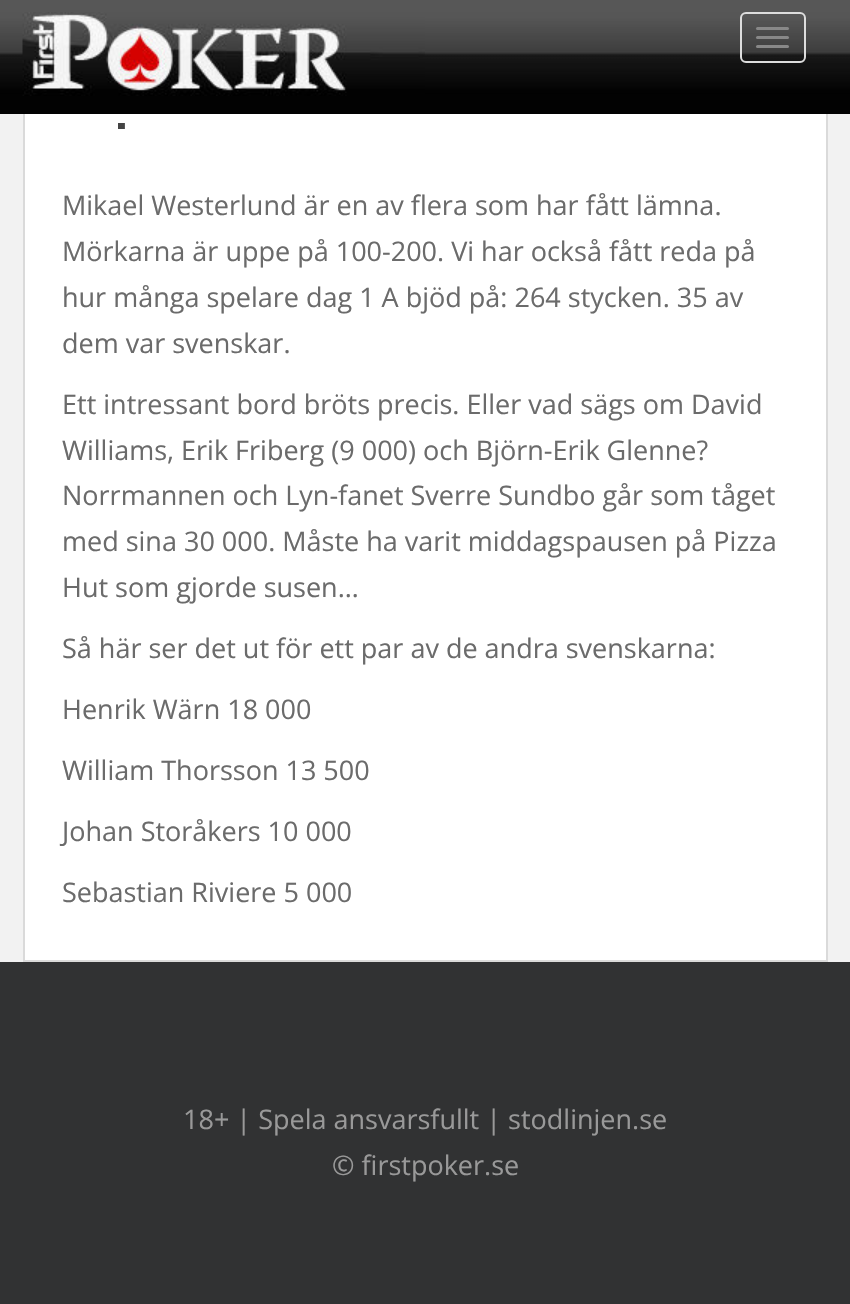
#include "include/core/SkBlurTypes.h"
#include "include/core/SkCanvas.h"
#include "include/core/SkData.h"
#include "include/core/SkFont.h"
#include "include/core/SkFontMgr.h"
#include "include/core/SkImage.h"
#include "include/core/SkMaskFilter.h"
#include "include/core/SkPaint.h"
#include "include/core/SkPathBuilder.h"
#include "include/core/SkTextBlob.h"
#include "include/effects/SkDashPathEffect.h"
#include "include/effects/SkGradientShader.h"
#include "include/utils/SkParsePath.h"

extern sk_sp<SkFontMgr> fontMgr;

static SkFont font(const char* family, int weight, float size, bool italic = false) {
    SkFontStyle style(weight, SkFontStyle::kNormal_Width,
        italic ? SkFontStyle::kItalic_Slant : SkFontStyle::kUpright_Slant);
    SkFont result(fontMgr->matchFamilyStyle(family, style), size);
    result.setSubpixel(true);
    return result;
}

static void drawLabel(SkCanvas* canvas, const char* s, float x, float y, const SkFont& font, SkColor color) {
    SkPaint ink(SkColor4f::FromColor(color));
    ink.setAntiAlias(true);
    canvas->drawString(s, x, y, font, ink);
}

static void fillRect(SkCanvas* canvas, float x, float y, float w, float h, SkColor color) {
    SkPaint ink(SkColor4f::FromColor(color));
    ink.setAntiAlias(true);
    canvas->drawRect(SkRect::MakeXYWH(x, y, w, h), ink);
}

static void fillRRect(SkCanvas* canvas, float x, float y, float w, float h, float radius, SkColor color) {
    SkPaint ink(SkColor4f::FromColor(color));
    ink.setAntiAlias(true);
    canvas->drawRoundRect(SkRect::MakeXYWH(x, y, w, h), radius, radius, ink);
}

static void drawPhoto(SkCanvas* canvas, const char* path, float x, float y, float w, float h) {
    auto image = SkImages::DeferredFromEncodedData(SkData::MakeFromFileName(path));
    canvas->drawImageRect(image, SkRect::MakeXYWH(x, y, w, h), SkSamplingOptions());
}

void draw(SkCanvas* canvas) {
    SkPaint paint;
    paint.setAntiAlias(true);
    canvas->clear(0xFFF2F2F2);
    fillRect(canvas, 25, 114, 801, 846, 0xFFFFFFFF);
    paint.setStroke(true);
    paint.setStrokeWidth(2);
    paint.setColor(0xFFDADADA);
    canvas->drawRect(SkRect::MakeXYWH(24, 1, 803, 960), paint);
    drawPhoto(canvas, "assets/img1.png", 0, 0, 850, 114);
    drawPhoto(canvas, "assets/img2.png", 22, 12, 403, 84);
    paint.setColor(0xFFDDDDDD);
    canvas->drawRoundRect(SkRect::MakeXYWH(741, 13, 64, 49), 5, 5, paint);
    fillRRect(canvas, 756, 27, 33, 3, 1.5f, 0xFF888888);
    fillRRect(canvas, 756, 36, 33, 3, 1.5f, 0xFF888888);
    fillRRect(canvas, 756, 45, 33, 3, 1.5f, 0xFF888888);
    SkFont font1 = font("Roboto Slab", 700, 48);
    drawLabel(canvas, ".", 115, 129, font1, 0xFF444444);
    SkFont font2 = font("Open Sans", 400, 27);
    drawLabel(canvas, "Mikael Westerlund är en av flera som har fått lämna.", 62, 215, font2, 0xFF6B6B6B);
    drawLabel(canvas, "Mörkarna är uppe på 100-200. Vi har också fått reda på", 62, 261, font2, 0xFF6B6B6B);
    drawLabel(canvas, "hur många spelare dag 1 A bjöd på: 264 stycken. 35 av", 62, 307, font2, 0xFF6B6B6B);
    drawLabel(canvas, "dem var svenskar.", 62, 353, font2, 0xFF6B6B6B);
    drawLabel(canvas, "Ett intressant bord bröts precis. Eller vad sägs om David", 62, 414, font2, 0xFF6B6B6B);
    drawLabel(canvas, "Williams, Erik Friberg (9 000) och Björn-Erik Glenne?", 62, 460, font2, 0xFF6B6B6B);
    drawLabel(canvas, "Norrmannen och Lyn-fanet Sverre Sundbo går som tåget", 62, 505, font2, 0xFF6B6B6B);
    drawLabel(canvas, "med sina 30 000. Måste ha varit middagspausen på Pizza", 62, 551, font2, 0xFF6B6B6B);
    drawLabel(canvas, "Hut som gjorde susen…", 62, 597, font2, 0xFF6B6B6B);
    drawLabel(canvas, "Så här ser det ut för ett par av de andra svenskarna:", 62, 658, font2, 0xFF6B6B6B);
    drawLabel(canvas, "Henrik Wärn 18 000", 62, 719, font2, 0xFF6B6B6B);
    drawLabel(canvas, "William Thorsson 13 500", 62, 780, font2, 0xFF6B6B6B);
    drawLabel(canvas, "Johan Storåkers 10 000", 62, 841, font2, 0xFF6B6B6B);
    drawLabel(canvas, "Sebastian Riviere 5 000", 62, 902, font2, 0xFF6B6B6B);
    fillRect(canvas, 0, 962, 850, 342, 0xFF313233);
    drawLabel(canvas, "18+ | Spela ansvarsfullt | stodlinjen.se", 183, 1129, font2, 0xFF999999);
    drawLabel(canvas, "© firstpoker.se", 332, 1175, font2, 0xFF999999);
}
